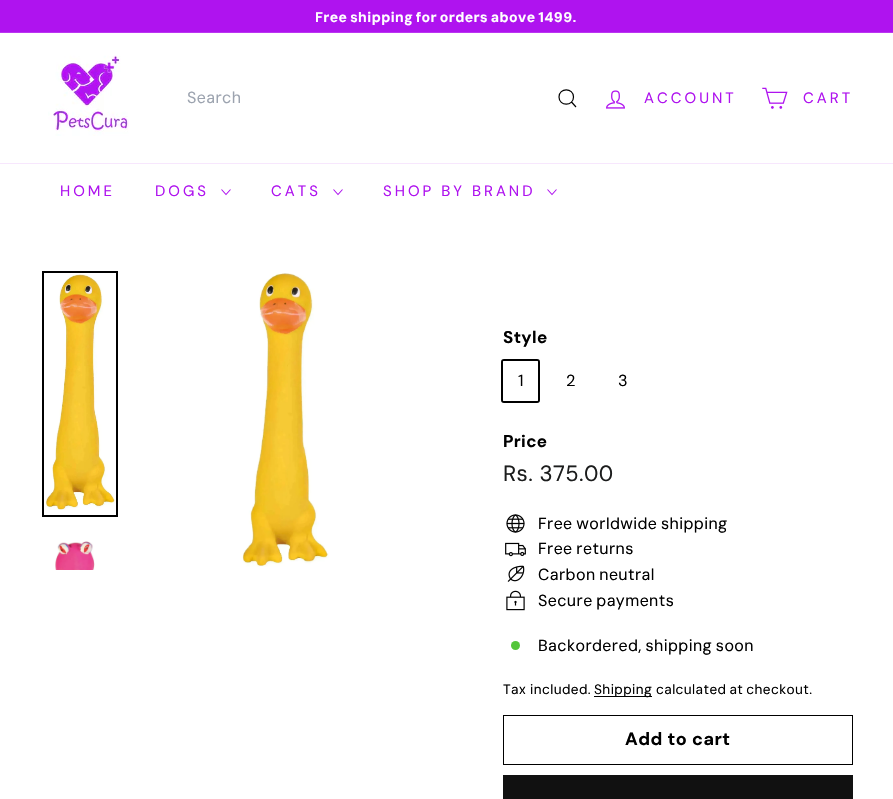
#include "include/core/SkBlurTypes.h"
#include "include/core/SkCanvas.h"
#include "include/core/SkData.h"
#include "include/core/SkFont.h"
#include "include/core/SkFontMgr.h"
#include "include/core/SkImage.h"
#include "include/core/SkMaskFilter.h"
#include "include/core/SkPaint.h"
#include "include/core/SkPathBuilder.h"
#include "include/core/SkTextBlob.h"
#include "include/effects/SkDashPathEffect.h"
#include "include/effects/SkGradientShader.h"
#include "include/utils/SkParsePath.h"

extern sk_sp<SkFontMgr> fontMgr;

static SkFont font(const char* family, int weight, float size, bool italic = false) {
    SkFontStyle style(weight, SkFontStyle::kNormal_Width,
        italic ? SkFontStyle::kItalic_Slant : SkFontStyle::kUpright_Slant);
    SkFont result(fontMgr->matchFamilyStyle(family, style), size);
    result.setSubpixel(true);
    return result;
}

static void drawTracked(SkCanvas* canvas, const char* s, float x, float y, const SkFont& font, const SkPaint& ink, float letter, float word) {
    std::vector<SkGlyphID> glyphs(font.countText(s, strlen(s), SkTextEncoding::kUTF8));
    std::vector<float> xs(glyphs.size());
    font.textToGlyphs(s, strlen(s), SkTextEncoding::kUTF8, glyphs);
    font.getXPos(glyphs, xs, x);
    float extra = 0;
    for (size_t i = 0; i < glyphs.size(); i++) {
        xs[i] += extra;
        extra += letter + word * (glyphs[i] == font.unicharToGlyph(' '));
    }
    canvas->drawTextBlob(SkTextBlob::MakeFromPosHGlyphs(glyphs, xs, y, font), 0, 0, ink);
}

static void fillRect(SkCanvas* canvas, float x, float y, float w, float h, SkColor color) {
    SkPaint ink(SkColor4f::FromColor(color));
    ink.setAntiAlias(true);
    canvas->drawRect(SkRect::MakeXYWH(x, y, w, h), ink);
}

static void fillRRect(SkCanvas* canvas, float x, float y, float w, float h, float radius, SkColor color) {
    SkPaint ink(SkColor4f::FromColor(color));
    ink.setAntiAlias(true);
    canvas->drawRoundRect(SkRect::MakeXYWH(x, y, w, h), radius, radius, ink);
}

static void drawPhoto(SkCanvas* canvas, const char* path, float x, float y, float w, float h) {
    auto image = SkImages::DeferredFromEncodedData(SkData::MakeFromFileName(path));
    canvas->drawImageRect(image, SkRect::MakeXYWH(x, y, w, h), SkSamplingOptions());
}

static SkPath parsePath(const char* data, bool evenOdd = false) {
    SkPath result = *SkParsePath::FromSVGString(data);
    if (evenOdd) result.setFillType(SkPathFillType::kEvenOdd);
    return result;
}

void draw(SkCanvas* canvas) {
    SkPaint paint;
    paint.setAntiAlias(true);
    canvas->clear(0xFFFFFFFF);
    fillRect(canvas, 0, 0, 893, 32, 0xFFAF13EF);
    SkFont font1 = font("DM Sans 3", 700, 14);
    paint.setColor(0xFFFFFFFF);
    drawTracked(canvas, "Free shipping for orders above 1499.", 315, 22, font1, paint, 0.4f, -1);
    fillRect(canvas, 0, 32, 893, 1, 0xFFBB36F1);
    drawPhoto(canvas, "assets/img1.png", 48, 55, 81, 81);
    SkFont font2 = font("DM Sans", 400, 16);
    paint.setColor(0xFF9CA3AF);
    drawTracked(canvas, "Search", 187, 103, font2, paint, 0.4f, 0);
    paint.setStroke(true);
    paint.setStrokeWidth(1.2f);
    paint.setColor(0xFF000000);
    canvas->drawPath(parsePath("M573.5 97C573.5 106.5 559 106.5 559 97C559 87.5 573.5 87.5 573.5 97M576 107L571.5 102"), paint);
    drawPhoto(canvas, "assets/img2.png", 606, 90, 19, 19);
    SkFont font3 = font("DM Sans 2", 400, 15);
    paint.setStroke(false);
    paint.setColor(0xFFAF13EF);
    drawTracked(canvas, "ACCOUNT", 644, 103, font3, paint, 3, 0);
    drawPhoto(canvas, "assets/img3.png", 762, 87, 26, 22);
    drawTracked(canvas, "CART", 803, 103, font3, paint, 3, 0);
    fillRect(canvas, 0, 163, 893, 1, 0xFFF7E7FD);
    drawTracked(canvas, "HOME", 60, 196, font3, paint, 3, 0);
    drawTracked(canvas, "DOGS", 155, 196, font3, paint, 3, 0);
    paint.setStroke(true);
    paint.setStrokeWidth(1.1f);
    canvas->drawPath(parsePath("M221.5 189.5L226 194.5L230.5 189.5"), paint);
    paint.setStroke(false);
    drawTracked(canvas, "CATS", 271, 196, font3, paint, 3, 0);
    paint.setStroke(true);
    canvas->drawPath(parsePath("M333.5 189.5L338 194.5L342.5 189.5"), paint);
    paint.setStroke(false);
    drawTracked(canvas, "SHOP BY BRAND", 383, 196, font3, paint, 3, 0);
    paint.setStroke(true);
    canvas->drawPath(parsePath("M547.5 189.5L552 194.5L556.5 189.5"), paint);
    drawPhoto(canvas, "assets/img4.png", 45, 274, 70, 236);
    paint.setStrokeWidth(2);
    paint.setColor(0xFF000000);
    canvas->drawRect(SkRect::MakeXYWH(43, 272, 74, 244), paint);
    drawPhoto(canvas, "assets/img5.png", 55, 541, 40, 29);
    drawPhoto(canvas, "assets/img6.png", 242, 273, 87, 294);
    SkFont font4 = font("DM Sans", 700, 17);
    paint.setStroke(false);
    drawTracked(canvas, "Style", 503, 343, font4, paint, 0.4f, 0);
    paint.setStroke(true);
    canvas->drawRoundRect(SkRect::MakeXYWH(502, 360, 37, 42), 2, 2, paint);
    fillRRect(canvas, 503, 361, 35, 40, 1, 0xFFFFFFFF);
    paint.setStroke(false);
    drawTracked(canvas, "1", 518, 386, font2, paint, 0.4f, 0);
    drawTracked(canvas, "2", 566, 386, font2, paint, 0.4f, 0);
    drawTracked(canvas, "3", 618, 386, font2, paint, 0.4f, 0);
    drawTracked(canvas, "Price", 503, 447, font4, paint, 0.4f, 0);
    SkFont font5 = font("DM Sans", 400, 22);
    paint.setColor(0xFF1C1D1D);
    drawTracked(canvas, "Rs. 375.00", 503, 481, font5, paint, 0.4f, 0);
    drawPhoto(canvas, "assets/img7.png", 506, 514, 19, 19);
    paint.setColor(0xFF000000);
    drawTracked(canvas, "Free worldwide shipping", 538, 529, font2, paint, 0.4f, -1);
    drawPhoto(canvas, "assets/img8.png", 505, 542, 21, 15);
    drawTracked(canvas, "Free returns", 538, 554, font2, paint, 0.4f, -1);
    drawPhoto(canvas, "assets/img9.png", 507, 565, 18, 17);
    drawTracked(canvas, "Carbon neutral", 538, 580, font2, paint, 0.4f, -1);
    drawPhoto(canvas, "assets/img10.png", 506, 590, 19, 21);
    drawTracked(canvas, "Secure payments", 538, 606, font2, paint, 0.4f, -1);
    paint.setColor(0xFF54C63A);
    canvas->drawCircle(515.5f, 645.5f, 4.5f, paint);
    paint.setColor(0xFF000000);
    drawTracked(canvas, "Backordered, shipping soon", 538, 651, font2, paint, 0.4f, -1);
    SkFont font6 = font("DM Sans", 400, 13.6f);
    drawTracked(canvas, "Tax included.", 503, 694, font6, paint, 0.4f, 0);
    fillRect(canvas, 594, 696, 58, 1, 0xFF000000);
    drawTracked(canvas, "Shipping", 594, 694, font6, paint, 0.4f, 0);
    drawTracked(canvas, "calculated at checkout.", 656, 694, font6, paint, 0.4f, -1);
    paint.setStroke(true);
    paint.setStrokeWidth(1);
    canvas->drawRect(SkRect::MakeXYWH(503.5f, 715.5f, 349, 49), paint);
    SkFont font7 = font("DM Sans 2", 700, 18);
    paint.setStroke(false);
    drawTracked(canvas, "Add to cart", 625, 745, font7, paint, 0.5f, 0);
    fillRect(canvas, 503, 775, 350, 24, 0xFF111111);
}
